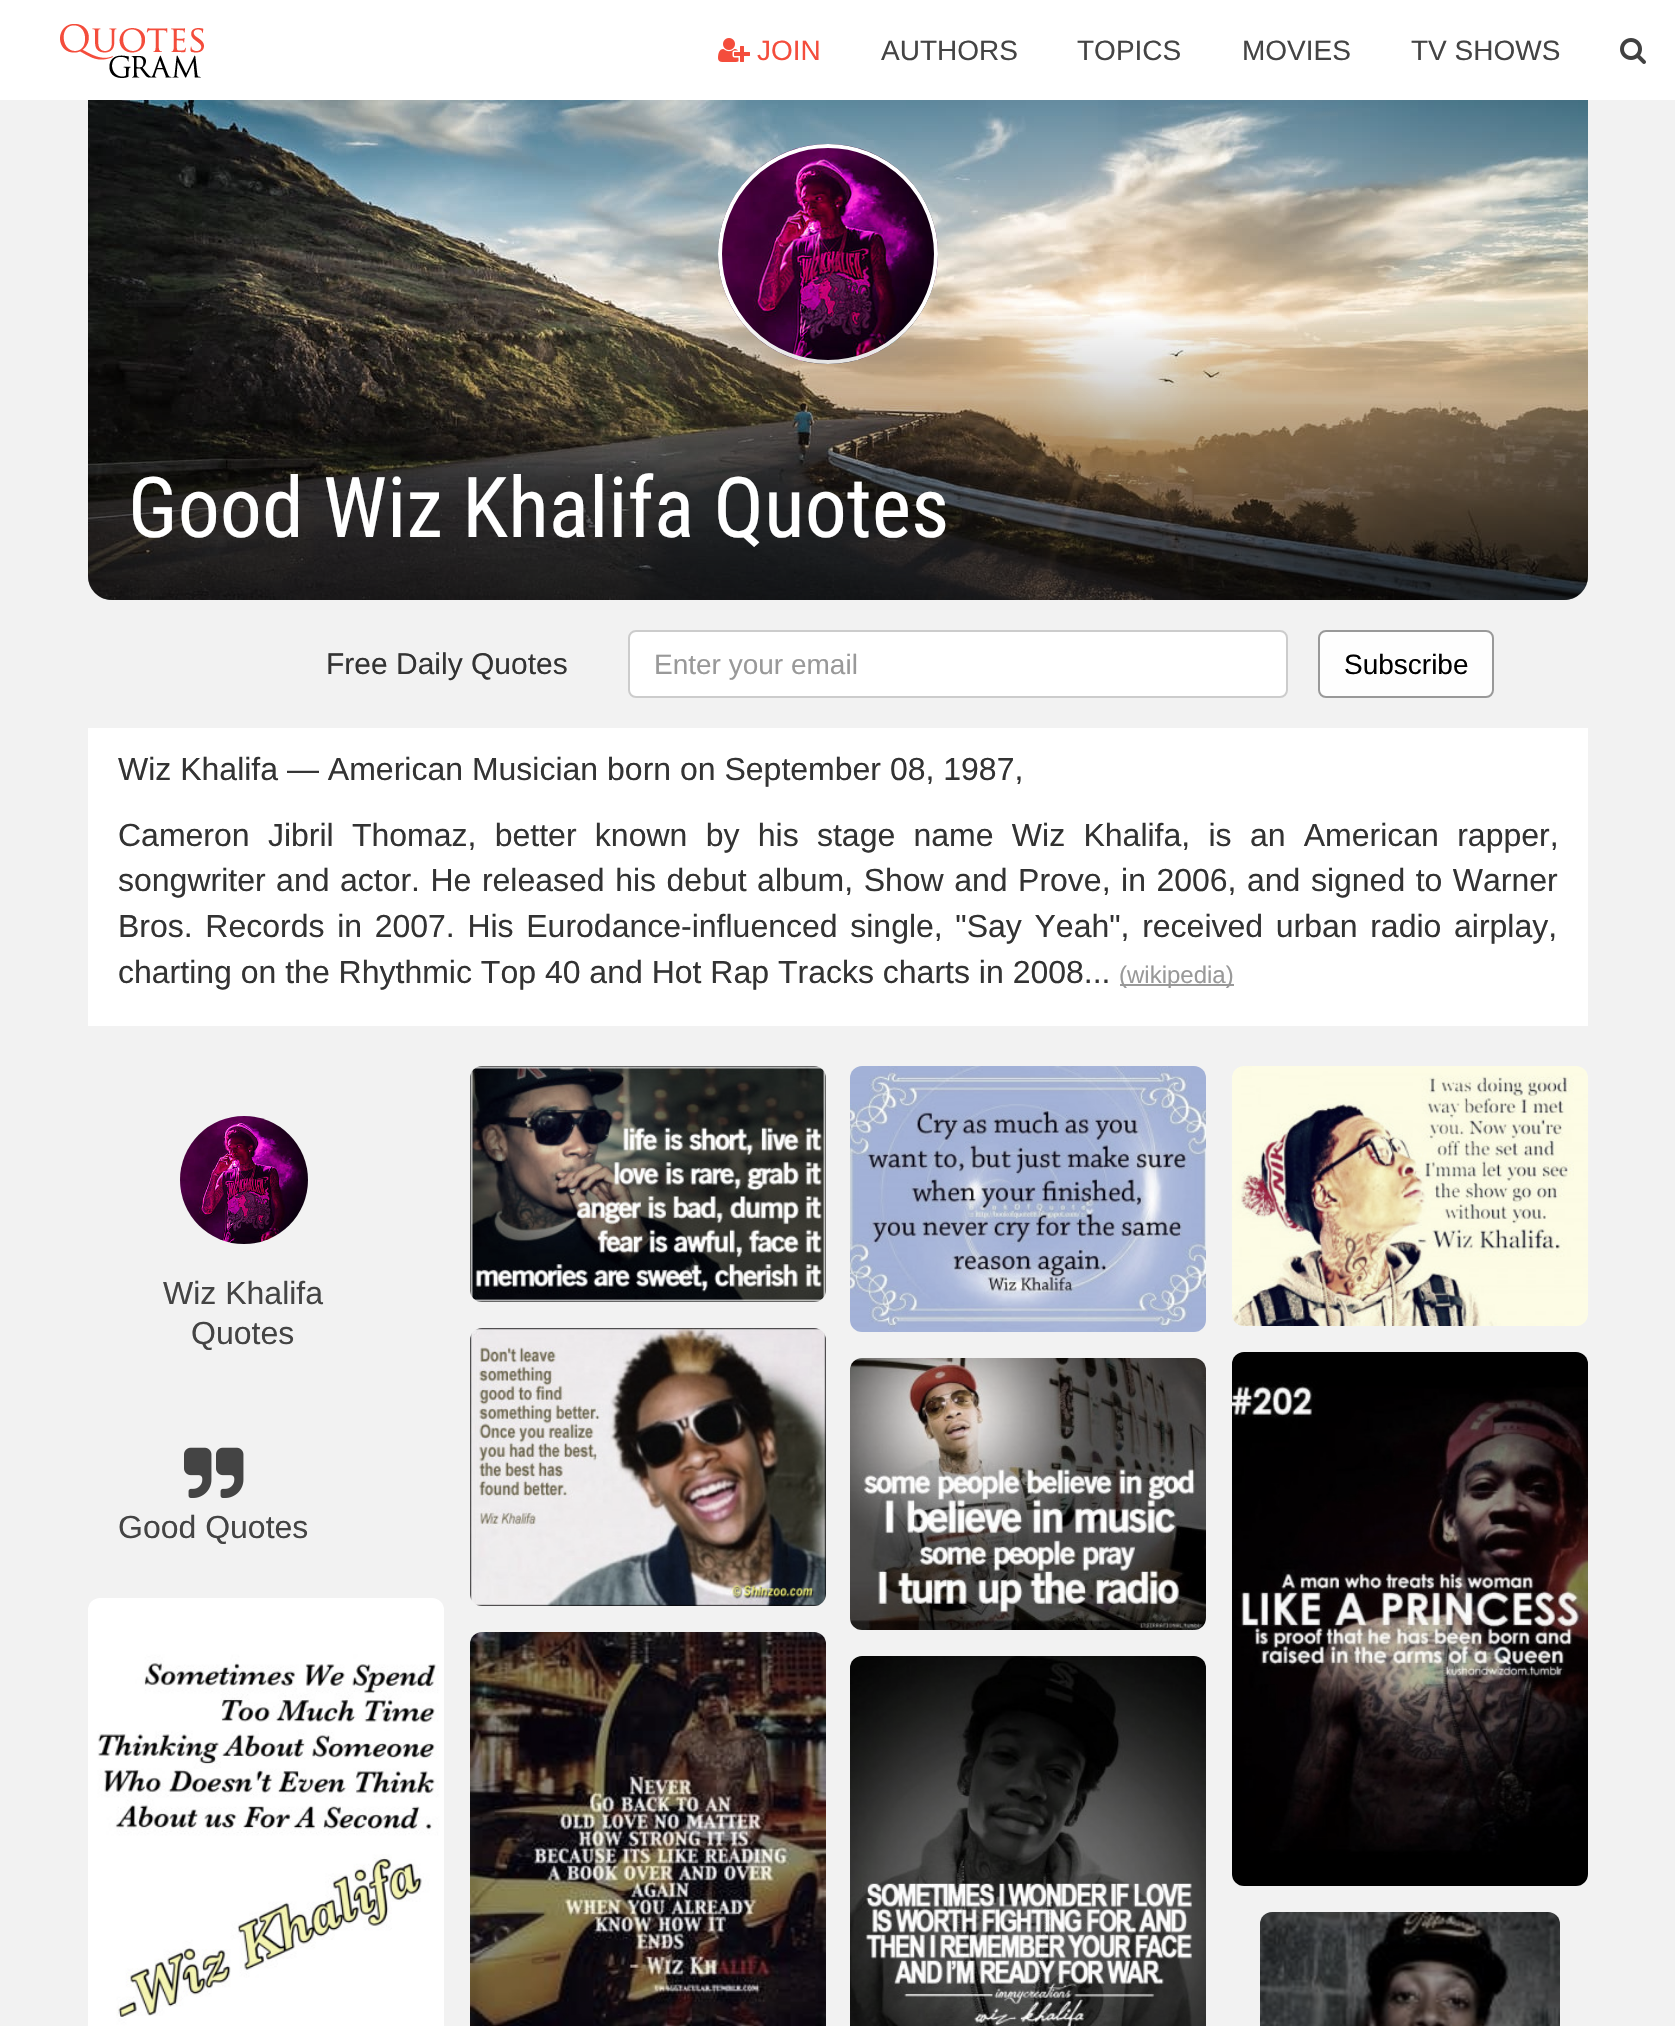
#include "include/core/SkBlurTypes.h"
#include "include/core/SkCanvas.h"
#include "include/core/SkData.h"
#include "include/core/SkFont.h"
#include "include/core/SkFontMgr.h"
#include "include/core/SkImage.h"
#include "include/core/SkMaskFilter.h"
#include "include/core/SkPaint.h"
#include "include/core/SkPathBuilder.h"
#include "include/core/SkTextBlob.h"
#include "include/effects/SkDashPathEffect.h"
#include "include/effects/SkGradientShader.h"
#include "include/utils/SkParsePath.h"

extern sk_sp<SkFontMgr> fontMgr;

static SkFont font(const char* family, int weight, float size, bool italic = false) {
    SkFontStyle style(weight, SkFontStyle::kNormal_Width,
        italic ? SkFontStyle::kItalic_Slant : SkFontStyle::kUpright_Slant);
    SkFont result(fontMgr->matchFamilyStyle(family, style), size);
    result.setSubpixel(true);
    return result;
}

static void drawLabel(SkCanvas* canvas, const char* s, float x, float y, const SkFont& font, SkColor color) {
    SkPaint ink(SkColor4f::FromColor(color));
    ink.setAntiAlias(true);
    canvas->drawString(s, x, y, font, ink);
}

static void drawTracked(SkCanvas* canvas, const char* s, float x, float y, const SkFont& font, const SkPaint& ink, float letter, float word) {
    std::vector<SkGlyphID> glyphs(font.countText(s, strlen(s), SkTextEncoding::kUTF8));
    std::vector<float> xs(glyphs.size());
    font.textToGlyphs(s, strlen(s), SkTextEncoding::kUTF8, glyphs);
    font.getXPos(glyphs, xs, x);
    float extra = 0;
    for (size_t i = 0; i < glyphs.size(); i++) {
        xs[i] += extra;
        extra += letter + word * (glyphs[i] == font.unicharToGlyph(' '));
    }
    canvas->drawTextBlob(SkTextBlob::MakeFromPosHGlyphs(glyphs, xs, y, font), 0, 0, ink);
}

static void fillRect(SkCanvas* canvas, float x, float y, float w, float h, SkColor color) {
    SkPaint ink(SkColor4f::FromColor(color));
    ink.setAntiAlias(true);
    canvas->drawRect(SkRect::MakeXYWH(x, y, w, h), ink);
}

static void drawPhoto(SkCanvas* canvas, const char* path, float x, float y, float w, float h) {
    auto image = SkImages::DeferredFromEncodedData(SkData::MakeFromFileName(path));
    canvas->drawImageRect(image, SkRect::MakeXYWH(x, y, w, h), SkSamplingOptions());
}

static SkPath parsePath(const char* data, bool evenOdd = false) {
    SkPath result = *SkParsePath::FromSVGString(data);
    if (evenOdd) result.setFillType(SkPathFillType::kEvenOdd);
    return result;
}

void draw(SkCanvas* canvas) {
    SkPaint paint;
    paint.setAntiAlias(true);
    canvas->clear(0xFFF2F2F2);
    fillRect(canvas, 0, 0, 1675, 100, 0xFFFFFFFF);
    drawPhoto(canvas, "assets/img1.png", 60, 24, 144, 54);
    drawPhoto(canvas, "assets/img2.png", 718, 38, 32, 24);
    SkFont font1 = font("Liberation Sans", 400, 28);
    drawLabel(canvas, "JOIN", 757, 60, font1, 0xFFF44D3C);
    drawLabel(canvas, "AUTHORS", 881, 60, font1, 0xFF444444);
    drawLabel(canvas, "TOPICS", 1077, 60, font1, 0xFF444444);
    drawLabel(canvas, "MOVIES", 1242, 60, font1, 0xFF444444);
    drawLabel(canvas, "TV SHOWS", 1411, 60, font1, 0xFF444444);
    drawPhoto(canvas, "assets/img3.png", 1620, 38, 26, 26);
    drawPhoto(canvas, "assets/img4.png", 88, 100, 1500, 500);
    drawPhoto(canvas, "assets/img5.png", 718, 144, 220, 220);
    paint.setStroke(true);
    paint.setStrokeWidth(4);
    paint.setColor(0xFFFFFFFF);
    canvas->drawCircle(828, 254, 108, paint);
    paint.setStroke(false);
    {
        const SkColor colors[] = {0x00000000, 0x99000000};
        const float stops[] = {0, 1};
        const SkPoint ends[] = {{838, 312}, {838, 600}};
        paint.setShader(SkGradientShader::MakeLinear(ends, colors, stops, 2, SkTileMode::kClamp));
        paint.setAlpha(255);
    }
    canvas->drawPath(parsePath("M88 312H1588V576C1588 589.5 1577.5 600 1564 600H112C98.5 600 88 589.5 88 576Z"), paint);
    SkFont font2 = font("Roboto Condensed", 400, 84);
    drawLabel(canvas, "Good Wiz Khalifa Quotes", 128, 537, font2, 0xFFFFFFFF);
    SkFont font3 = font("Liberation Sans", 400, 30);
    drawLabel(canvas, "Free Daily Quotes", 326, 674, font3, 0xFF333333);
    paint.setShader(nullptr);
    paint.setColor(0xFFFFFFFF);
    canvas->drawRoundRect(SkRect::MakeXYWH(629, 631, 658, 66), 7, 7, paint);
    paint.setStroke(true);
    paint.setStrokeWidth(2);
    paint.setColor(0xFFCCCCCC);
    canvas->drawRoundRect(SkRect::MakeXYWH(629, 631, 658, 66), 7, 7, paint);
    drawLabel(canvas, "Enter your email", 654, 674, font1, 0xFF999999);
    paint.setStroke(false);
    paint.setColor(0xFFFEFEFE);
    canvas->drawRoundRect(SkRect::MakeXYWH(1319, 631, 174, 66), 7, 7, paint);
    paint.setStroke(true);
    paint.setColor(0xFF999999);
    canvas->drawRoundRect(SkRect::MakeXYWH(1319, 631, 174, 66), 7, 7, paint);
    drawLabel(canvas, "Subscribe", 1344, 674, font1, 0xFF000000);
    fillRect(canvas, 88, 728, 1500, 298, 0xFFFFFFFF);
    SkFont font4 = font("Liberation Sans", 400, 32);
    drawLabel(canvas, "Wiz Khalifa — American Musician born on September 08, 1987,", 118, 780, font4, 0xFF333333);
    paint.setStroke(false);
    paint.setColor(0xFF333333);
    drawTracked(canvas, "Cameron Jibril Thomaz, better known by his stage name Wiz Khalifa, is an American rapper,", 118, 846, font4, paint, 0, 9.4f);
    drawTracked(canvas, "songwriter and actor. He released his debut album, Show and Prove, in 2006, and signed to Warner", 118, 891, font4, paint, 0, 1.6f);
    drawTracked(canvas, "Bros. Records in 2007. His Eurodance-influenced single, \"Say Yeah\", received urban radio airplay,", 118, 937, font4, paint, 0, 3.75f);
    drawLabel(canvas, "charting on the Rhythmic Top 40 and Hot Rap Tracks charts in 2008...", 118, 983, font4, 0xFF333333);
    fillRect(canvas, 1120, 984, 114, 2, 0xFF999999);
    SkFont font5 = font("Liberation Sans", 400, 24);
    drawLabel(canvas, "(wikipedia)", 1119, 983, font5, 0xFF999999);
    drawPhoto(canvas, "assets/img6.png", 180, 1116, 128, 128);
    drawLabel(canvas, "Wiz Khalifa", 163, 1304, font4, 0xFF444444);
    drawLabel(canvas, "Quotes", 191, 1344, font4, 0xFF444444);
    drawPhoto(canvas, "assets/img7.png", 470, 1066, 356, 236);
    drawPhoto(canvas, "assets/img8.png", 850, 1066, 356, 266);
    drawPhoto(canvas, "assets/img9.png", 1232, 1066, 356, 260);
    drawPhoto(canvas, "assets/img10.png", 184, 1447, 60, 51);
    drawLabel(canvas, "Good Quotes", 118, 1538, font4, 0xFF444444);
    drawPhoto(canvas, "assets/img11.png", 470, 1328, 356, 278);
    drawPhoto(canvas, "assets/img12.png", 850, 1358, 356, 272);
    drawPhoto(canvas, "assets/img13.png", 1232, 1352, 356, 534);
    drawPhoto(canvas, "assets/img14.png", 88, 1598, 356, 428);
    drawPhoto(canvas, "assets/img15.png", 470, 1632, 356, 394);
    drawPhoto(canvas, "assets/img16.png", 850, 1656, 356, 370);
    drawPhoto(canvas, "assets/img17.png", 1260, 1912, 300, 114);
}
